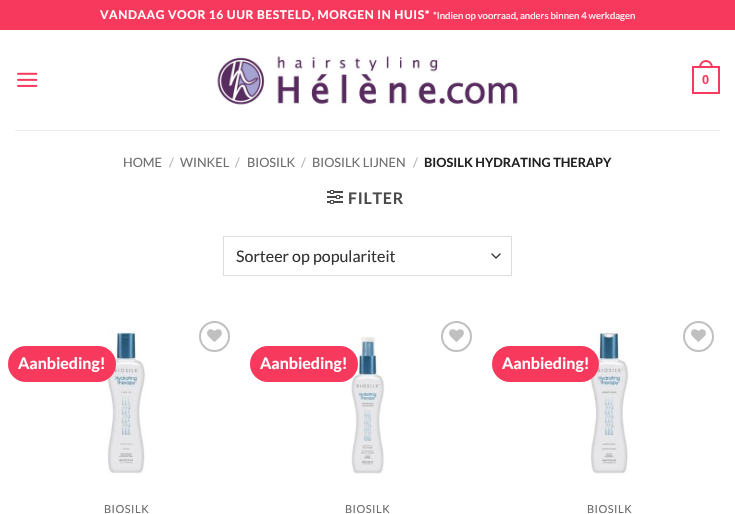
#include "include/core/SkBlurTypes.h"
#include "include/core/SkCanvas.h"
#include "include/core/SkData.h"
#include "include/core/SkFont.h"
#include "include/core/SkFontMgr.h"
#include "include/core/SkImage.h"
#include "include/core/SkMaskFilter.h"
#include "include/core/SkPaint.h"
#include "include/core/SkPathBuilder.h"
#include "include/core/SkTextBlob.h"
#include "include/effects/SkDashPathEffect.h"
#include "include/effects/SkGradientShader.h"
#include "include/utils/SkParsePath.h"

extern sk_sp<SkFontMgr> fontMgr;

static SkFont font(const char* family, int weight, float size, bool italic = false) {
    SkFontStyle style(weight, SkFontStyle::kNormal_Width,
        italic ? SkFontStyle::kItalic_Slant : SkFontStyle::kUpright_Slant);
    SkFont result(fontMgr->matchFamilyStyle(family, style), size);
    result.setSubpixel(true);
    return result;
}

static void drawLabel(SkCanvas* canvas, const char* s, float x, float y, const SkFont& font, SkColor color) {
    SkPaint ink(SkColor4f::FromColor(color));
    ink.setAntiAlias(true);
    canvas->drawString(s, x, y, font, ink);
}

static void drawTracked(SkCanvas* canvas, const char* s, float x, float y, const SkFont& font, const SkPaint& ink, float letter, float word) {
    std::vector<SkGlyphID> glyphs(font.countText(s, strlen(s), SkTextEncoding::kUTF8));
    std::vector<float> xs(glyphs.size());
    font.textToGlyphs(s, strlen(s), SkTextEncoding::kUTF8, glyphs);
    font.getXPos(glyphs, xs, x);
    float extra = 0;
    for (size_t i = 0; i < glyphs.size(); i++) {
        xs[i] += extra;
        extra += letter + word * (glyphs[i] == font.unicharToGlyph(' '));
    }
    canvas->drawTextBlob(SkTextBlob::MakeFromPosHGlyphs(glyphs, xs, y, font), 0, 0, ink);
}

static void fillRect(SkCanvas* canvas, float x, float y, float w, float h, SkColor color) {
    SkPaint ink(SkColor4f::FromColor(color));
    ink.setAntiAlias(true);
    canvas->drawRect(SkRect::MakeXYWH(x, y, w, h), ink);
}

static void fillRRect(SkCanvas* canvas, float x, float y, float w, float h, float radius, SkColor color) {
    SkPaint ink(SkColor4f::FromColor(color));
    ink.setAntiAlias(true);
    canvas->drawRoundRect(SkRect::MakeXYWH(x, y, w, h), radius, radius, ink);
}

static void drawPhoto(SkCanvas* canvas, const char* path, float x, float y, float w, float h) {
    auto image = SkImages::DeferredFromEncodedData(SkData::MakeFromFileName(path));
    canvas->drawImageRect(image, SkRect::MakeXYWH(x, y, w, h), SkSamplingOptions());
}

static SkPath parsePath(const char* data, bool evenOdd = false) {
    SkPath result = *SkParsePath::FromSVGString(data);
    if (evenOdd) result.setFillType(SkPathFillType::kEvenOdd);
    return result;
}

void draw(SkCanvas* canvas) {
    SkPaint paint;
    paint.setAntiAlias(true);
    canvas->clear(0xFFFFFFFF);
    fillRect(canvas, 0, 0, 735, 30, 0xFFF6395C);
    SkFont font1 = font("Lato", 700, 12);
    paint.setColor(0xFFFFFFFF);
    drawTracked(canvas, "VANDAAG VOOR 16 UUR BESTELD, MORGEN IN HUIS*", 100, 19, font1, paint, 0.6f, 0);
    SkFont font2 = font("Lato", 400, 9.6f);
    drawLabel(canvas, "*Indien op voorraad, anders binnen 4 werkdagen", 433, 19, font2, 0xFFFFFFFF);
    drawPhoto(canvas, "assets/img1.png", 17, 72, 21, 15);
    drawPhoto(canvas, "assets/img2.png", 217, 55, 301, 51);
    paint.setStroke(true);
    paint.setStrokeWidth(2);
    paint.setColor(0xFFF6395C);
    canvas->drawRect(SkRect::MakeXYWH(693, 67, 26, 26), paint);
    paint.setStroke(false);
    canvas->drawPath(parsePath("M706 60C710.5 60 713 64 713 68H699C699 64 701.5 60 706 60ZM706 62C709.5 62 711 65 711 68H701C701 65 702.5 62 706 62Z", true), paint);
    SkFont font3 = font("Liberation Sans", 700, 12.75f);
    drawLabel(canvas, "0", 702, 84, font3, 0xFFF6395C);
    fillRect(canvas, 15, 130, 705, 1, 0xFFEDEDED);
    SkFont font4 = font("Lato", 400, 12.75f);
    drawLabel(canvas, "HOME", 123, 167, font4, 0xFF6E6E6E);
    drawLabel(canvas, "/", 169, 167, font4, 0xFFB2B2B2);
    drawLabel(canvas, "WINKEL", 180, 167, font4, 0xFF6E6E6E);
    drawLabel(canvas, "/", 235, 167, font4, 0xFFB2B2B2);
    drawLabel(canvas, "BIOSILK", 247, 167, font4, 0xFF6E6E6E);
    drawLabel(canvas, "/", 301, 167, font4, 0xFFB2B2B2);
    drawLabel(canvas, "BIOSILK LIJNEN", 312, 167, font4, 0xFF6E6E6E);
    drawLabel(canvas, "/", 413, 167, font4, 0xFFB2B2B2);
    SkFont font5 = font("Lato", 700, 12.75f);
    drawLabel(canvas, "BIOSILK HYDRATING THERAPY", 424, 167, font5, 0xFF222222);
    drawPhoto(canvas, "assets/img3.png", 327, 190, 16, 14);
    SkFont font6 = font("Lato", 700, 16);
    paint.setColor(0xFF4A4A4A);
    drawTracked(canvas, "FILTER", 348, 204, font6, paint, 0.75f, 0);
    paint.setStroke(true);
    paint.setStrokeWidth(1.3f);
    paint.setStrokeCap(SkPaint::kRound_Cap);
    paint.setStrokeJoin(SkPaint::kRound_Join);
    paint.setColor(0xFF333333);
    canvas->drawPath(parsePath("M492 254L496 258L500 254"), paint);
    paint.setStrokeWidth(1);
    paint.setStrokeCap(SkPaint::kButt_Cap);
    paint.setStrokeJoin(SkPaint::kMiter_Join);
    paint.setColor(0xFFDDDDDD);
    canvas->drawRect(SkRect::MakeXYWH(223.5f, 236.5f, 288, 39), paint);
    SkFont font7 = font("Lato", 400, 16);
    drawLabel(canvas, "Sorteer op populariteit", 236, 262, font7, 0xFF333333);
    drawPhoto(canvas, "assets/img4.png", 107, 328, 39, 146);
    fillRRect(canvas, 8, 346, 108, 36, 18, 0xFFF6395C);
    drawLabel(canvas, "Aanbieding!", 18, 369, font6, 0xFFFFFFFF);
    paint.setStrokeWidth(2);
    paint.setColor(0xFFC0C0C0);
    canvas->drawCircle(214.5f, 336.5f, 14.5f, paint);
    drawPhoto(canvas, "assets/img5.png", 207, 329, 15, 13);
    SkFont font8 = font("Lato", 400, 11);
    paint.setStroke(false);
    paint.setColor(0xFF6E6E6E);
    drawTracked(canvas, "BIOSILK", 104, 513, font8, paint, 0.5f, 0);
    drawPhoto(canvas, "assets/img6.png", 350, 336, 35, 139);
    fillRRect(canvas, 250, 346, 108, 36, 18, 0xFFF6395C);
    drawLabel(canvas, "Aanbieding!", 260, 369, font6, 0xFFFFFFFF);
    paint.setStroke(true);
    paint.setColor(0xFFC0C0C0);
    canvas->drawCircle(456.5f, 336.5f, 14.5f, paint);
    drawPhoto(canvas, "assets/img5.png", 449, 329, 15, 13);
    paint.setStroke(false);
    paint.setColor(0xFF6E6E6E);
    drawTracked(canvas, "BIOSILK", 345, 513, font8, paint, 0.5f, 0);
    drawPhoto(canvas, "assets/img7.png", 590, 327, 39, 147);
    fillRRect(canvas, 492, 346, 107, 36, 18, 0xFFF6395C);
    drawLabel(canvas, "Aanbieding!", 502, 369, font6, 0xFFFFFFFF);
    paint.setStroke(true);
    paint.setColor(0xFFC0C0C0);
    canvas->drawCircle(698.5f, 336.5f, 14.5f, paint);
    drawPhoto(canvas, "assets/img5.png", 691, 329, 15, 13);
    paint.setStroke(false);
    paint.setColor(0xFF6E6E6E);
    drawTracked(canvas, "BIOSILK", 587, 513, font8, paint, 0.5f, 0);
}
